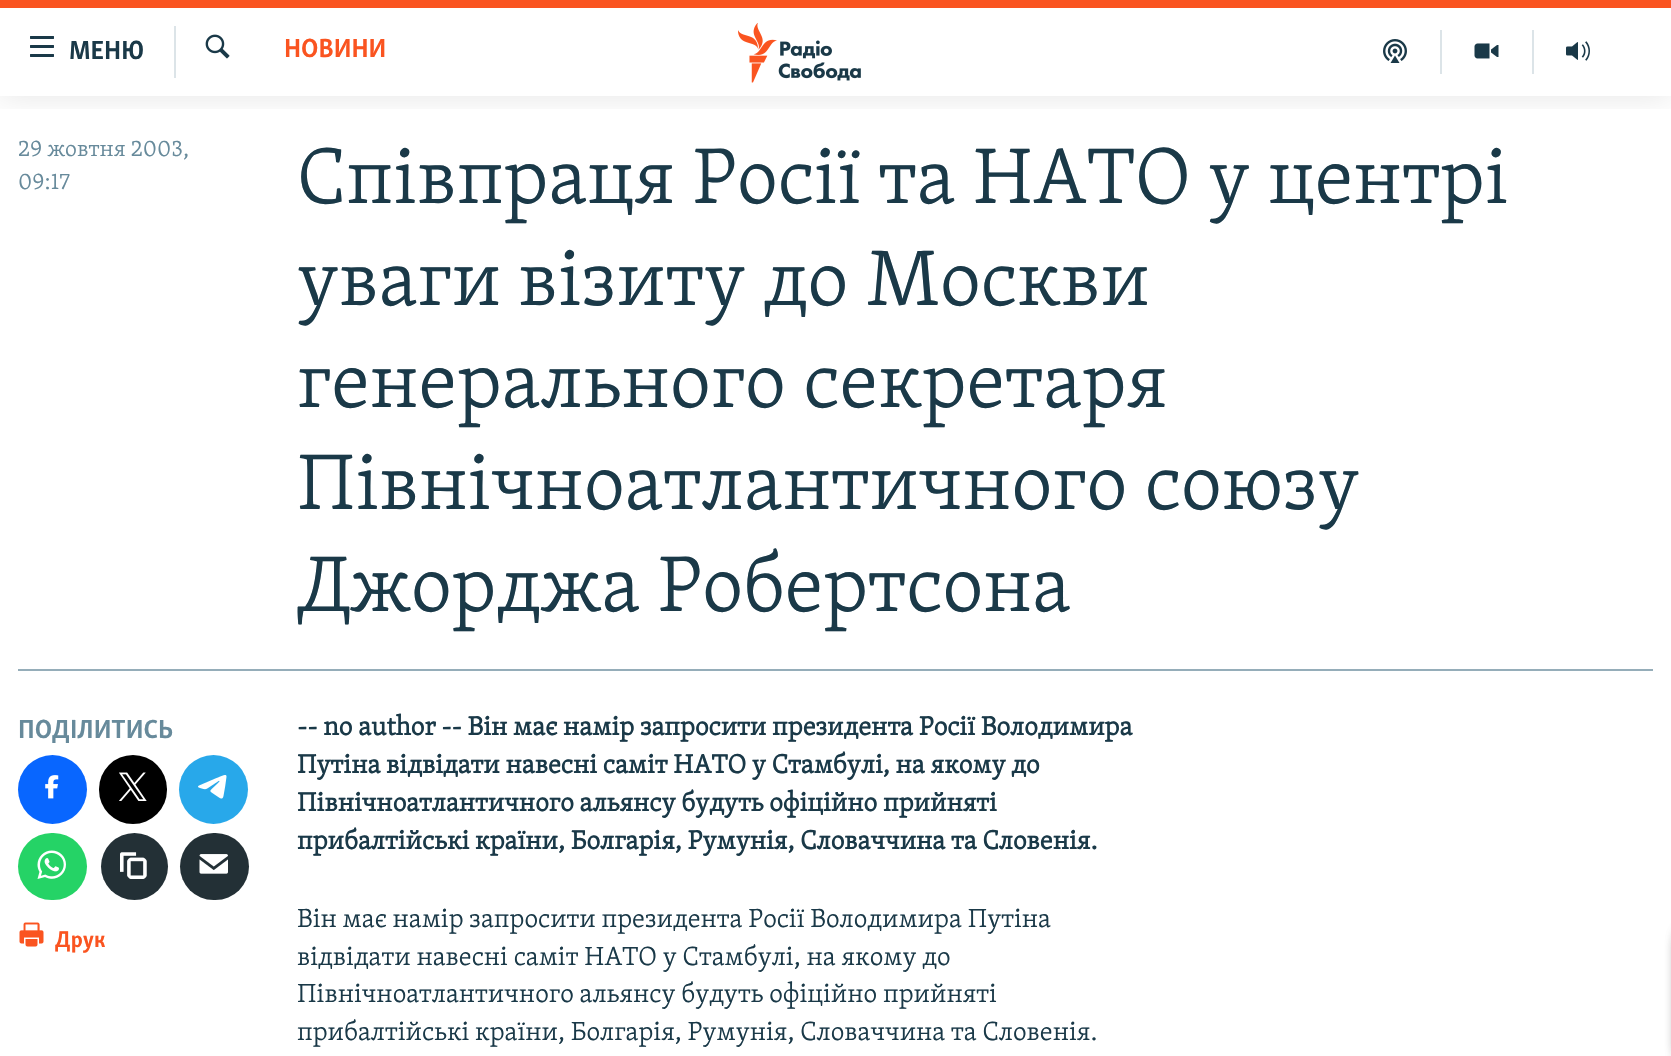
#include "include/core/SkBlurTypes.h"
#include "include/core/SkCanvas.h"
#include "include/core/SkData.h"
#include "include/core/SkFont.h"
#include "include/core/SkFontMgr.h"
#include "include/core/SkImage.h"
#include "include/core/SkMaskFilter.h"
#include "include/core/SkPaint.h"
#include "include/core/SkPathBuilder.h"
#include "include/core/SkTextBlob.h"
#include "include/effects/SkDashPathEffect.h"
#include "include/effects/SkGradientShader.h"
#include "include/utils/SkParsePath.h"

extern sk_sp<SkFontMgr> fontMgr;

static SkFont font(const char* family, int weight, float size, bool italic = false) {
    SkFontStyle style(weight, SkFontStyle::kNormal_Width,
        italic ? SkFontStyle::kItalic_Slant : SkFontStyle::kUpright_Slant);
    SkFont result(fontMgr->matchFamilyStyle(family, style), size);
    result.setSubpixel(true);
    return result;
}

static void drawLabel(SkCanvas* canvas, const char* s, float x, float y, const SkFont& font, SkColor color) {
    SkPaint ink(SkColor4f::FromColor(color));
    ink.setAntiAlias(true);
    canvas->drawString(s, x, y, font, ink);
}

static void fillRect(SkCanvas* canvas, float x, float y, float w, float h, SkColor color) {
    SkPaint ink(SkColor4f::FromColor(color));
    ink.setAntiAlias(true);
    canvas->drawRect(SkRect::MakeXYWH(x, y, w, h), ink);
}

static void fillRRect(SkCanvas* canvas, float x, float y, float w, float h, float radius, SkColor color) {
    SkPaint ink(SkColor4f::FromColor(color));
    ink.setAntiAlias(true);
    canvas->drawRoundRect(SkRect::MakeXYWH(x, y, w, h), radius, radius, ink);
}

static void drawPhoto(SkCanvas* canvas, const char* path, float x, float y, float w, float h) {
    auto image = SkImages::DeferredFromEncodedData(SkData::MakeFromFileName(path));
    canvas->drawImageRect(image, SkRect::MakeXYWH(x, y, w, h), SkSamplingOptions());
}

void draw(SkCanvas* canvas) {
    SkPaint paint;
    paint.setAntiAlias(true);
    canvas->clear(0xFFFFFFFF);
    canvas->save();
    canvas->clipRect(SkRect::MakeXYWH(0, 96, 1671, 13));
    paint.setColor(0x1A000000);
    paint.setMaskFilter(SkMaskFilter::MakeBlur(kNormal_SkBlurStyle, 15));
    canvas->drawRect(SkRect::MakeXYWH(0, 0, 1671, 96), paint);
    paint.setMaskFilter(nullptr);
    canvas->restore();
    fillRect(canvas, 0, 0, 1671, 8, 0xFFFA5420);
    drawPhoto(canvas, "assets/img1.png", 30, 36, 24, 21);
    SkFont font1 = font("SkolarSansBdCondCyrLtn", 700, 27);
    drawLabel(canvas, "МЕНЮ", 69, 59, font1, 0xFF1A3948);
    fillRect(canvas, 174, 26, 2, 52, 0xFFDCE4E8);
    drawPhoto(canvas, "assets/img2.png", 205, 34, 25, 25);
    drawLabel(canvas, "НОВИНИ", 284, 57, font1, 0xFFFA5420);
    drawPhoto(canvas, "assets/img3.png", 738, 23, 123, 60);
    fillRect(canvas, 1440, 30, 2, 44, 0xFFDCE4E8);
    drawPhoto(canvas, "assets/img4.png", 1383, 39, 24, 24);
    fillRect(canvas, 1532, 30, 2, 44, 0xFFDCE4E8);
    drawPhoto(canvas, "assets/img5.png", 1474, 43, 25, 16);
    drawPhoto(canvas, "assets/img6.png", 1566, 41, 24, 20);
    SkFont font2 = font("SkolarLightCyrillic", 300, 23.5f);
    drawLabel(canvas, "29 жовтня 2003,", 18, 156, font2, 0xFF678A9B);
    drawLabel(canvas, "09:17", 18, 189, font2, 0xFF678A9B);
    SkFont font3 = font("SkolarLightCyrillic", 300, 81);
    drawLabel(canvas, "Співпраця Росії та НАТО у центрі", 297, 203, font3, 0xFF1A3948);
    drawLabel(canvas, "уваги візиту до Москви", 297, 305, font3, 0xFF1A3948);
    drawLabel(canvas, "генерального секретаря", 297, 407, font3, 0xFF1A3948);
    drawLabel(canvas, "Північноатлантичного союзу", 297, 509, font3, 0xFF1A3948);
    drawLabel(canvas, "Джорджа Робертсона", 297, 611, font3, 0xFF1A3948);
    fillRect(canvas, 18, 669, 1635, 2, 0xFF95ADB9);
    drawLabel(canvas, "ПОДІЛИТИСЬ", 18, 738, font1, 0xFF678A9B);
    paint.setColor(0xFF0866FF);
    canvas->drawCircle(52.5f, 789.5f, 34.5f, paint);
    drawPhoto(canvas, "assets/img7.png", 45, 775, 14, 24);
    fillRRect(canvas, 99, 755, 68, 69, 34, 0xFF000000);
    drawPhoto(canvas, "assets/img8.png", 119, 772, 28, 29);
    paint.setColor(0xFF28A8EA);
    canvas->drawCircle(213.5f, 789.5f, 34.5f, paint);
    drawPhoto(canvas, "assets/img9.png", 198, 775, 29, 24);
    fillRRect(canvas, 18, 833, 69, 67, 33.5f, 0xFF25D366);
    drawPhoto(canvas, "assets/img10.png", 37, 850, 29, 29);
    paint.setColor(0xFF233036);
    canvas->drawCircle(134.5f, 866.5f, 33.5f, paint);
    drawPhoto(canvas, "assets/img11.png", 120, 852, 27, 27);
    fillRRect(canvas, 180, 833, 69, 67, 33.5f, 0xFF233036);
    drawPhoto(canvas, "assets/img12.png", 199, 854, 29, 20);
    drawPhoto(canvas, "assets/img13.png", 19, 922, 25, 25);
    SkFont font4 = font("SkolarSansBdCondCyrLtn", 700, 23.5f);
    drawLabel(canvas, "Друк", 55, 947, font4, 0xFFFA5420);
    SkFont font5 = font("SkolarLightCyrillic", 700, 27);
    drawLabel(canvas, "-- no author -- Він має намір запросити президента Росії Володимира", 297, 735, font5, 0xFF1A3948);
    drawLabel(canvas, "Путіна відвідати навесні саміт НАТО у Стамбулі, на якому до", 297, 773, font5, 0xFF1A3948);
    drawLabel(canvas, "Північноатлантичного альянсу будуть офіційно прийняті", 297, 811, font5, 0xFF1A3948);
    drawLabel(canvas, "прибалтійські країни, Болгарія, Румунія, Словаччина та Словенія.", 297, 849, font5, 0xFF1A3948);
    SkFont font6 = font("SkolarLightCyrillic", 300, 27);
    drawLabel(canvas, "Він має намір запросити президента Росії Володимира Путіна", 297, 927, font6, 0xFF1A3948);
    drawLabel(canvas, "відвідати навесні саміт НАТО у Стамбулі, на якому до", 297, 965, font6, 0xFF1A3948);
    drawLabel(canvas, "Північноатлантичного альянсу будуть офіційно прийняті", 297, 1002, font6, 0xFF1A3948);
    drawLabel(canvas, "прибалтійські країни, Болгарія, Румунія, Словаччина та Словенія.", 297, 1040, font6, 0xFF1A3948);
    paint.setColor(0xD9000000);
    paint.setMaskFilter(SkMaskFilter::MakeBlur(kNormal_SkBlurStyle, 7.5f));
    canvas->drawRoundRect(SkRect::MakeXYWH(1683, 935, 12, 121), 1.5f, 1.5f, paint);
    paint.setMaskFilter(nullptr);
    paint.setMaskFilter(SkMaskFilter::MakeBlur(kNormal_SkBlurStyle, 7.5f));
    canvas->drawRoundRect(SkRect::MakeXYWH(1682, 935, 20, 121), 8, 8, paint);
    paint.setMaskFilter(nullptr);
}
